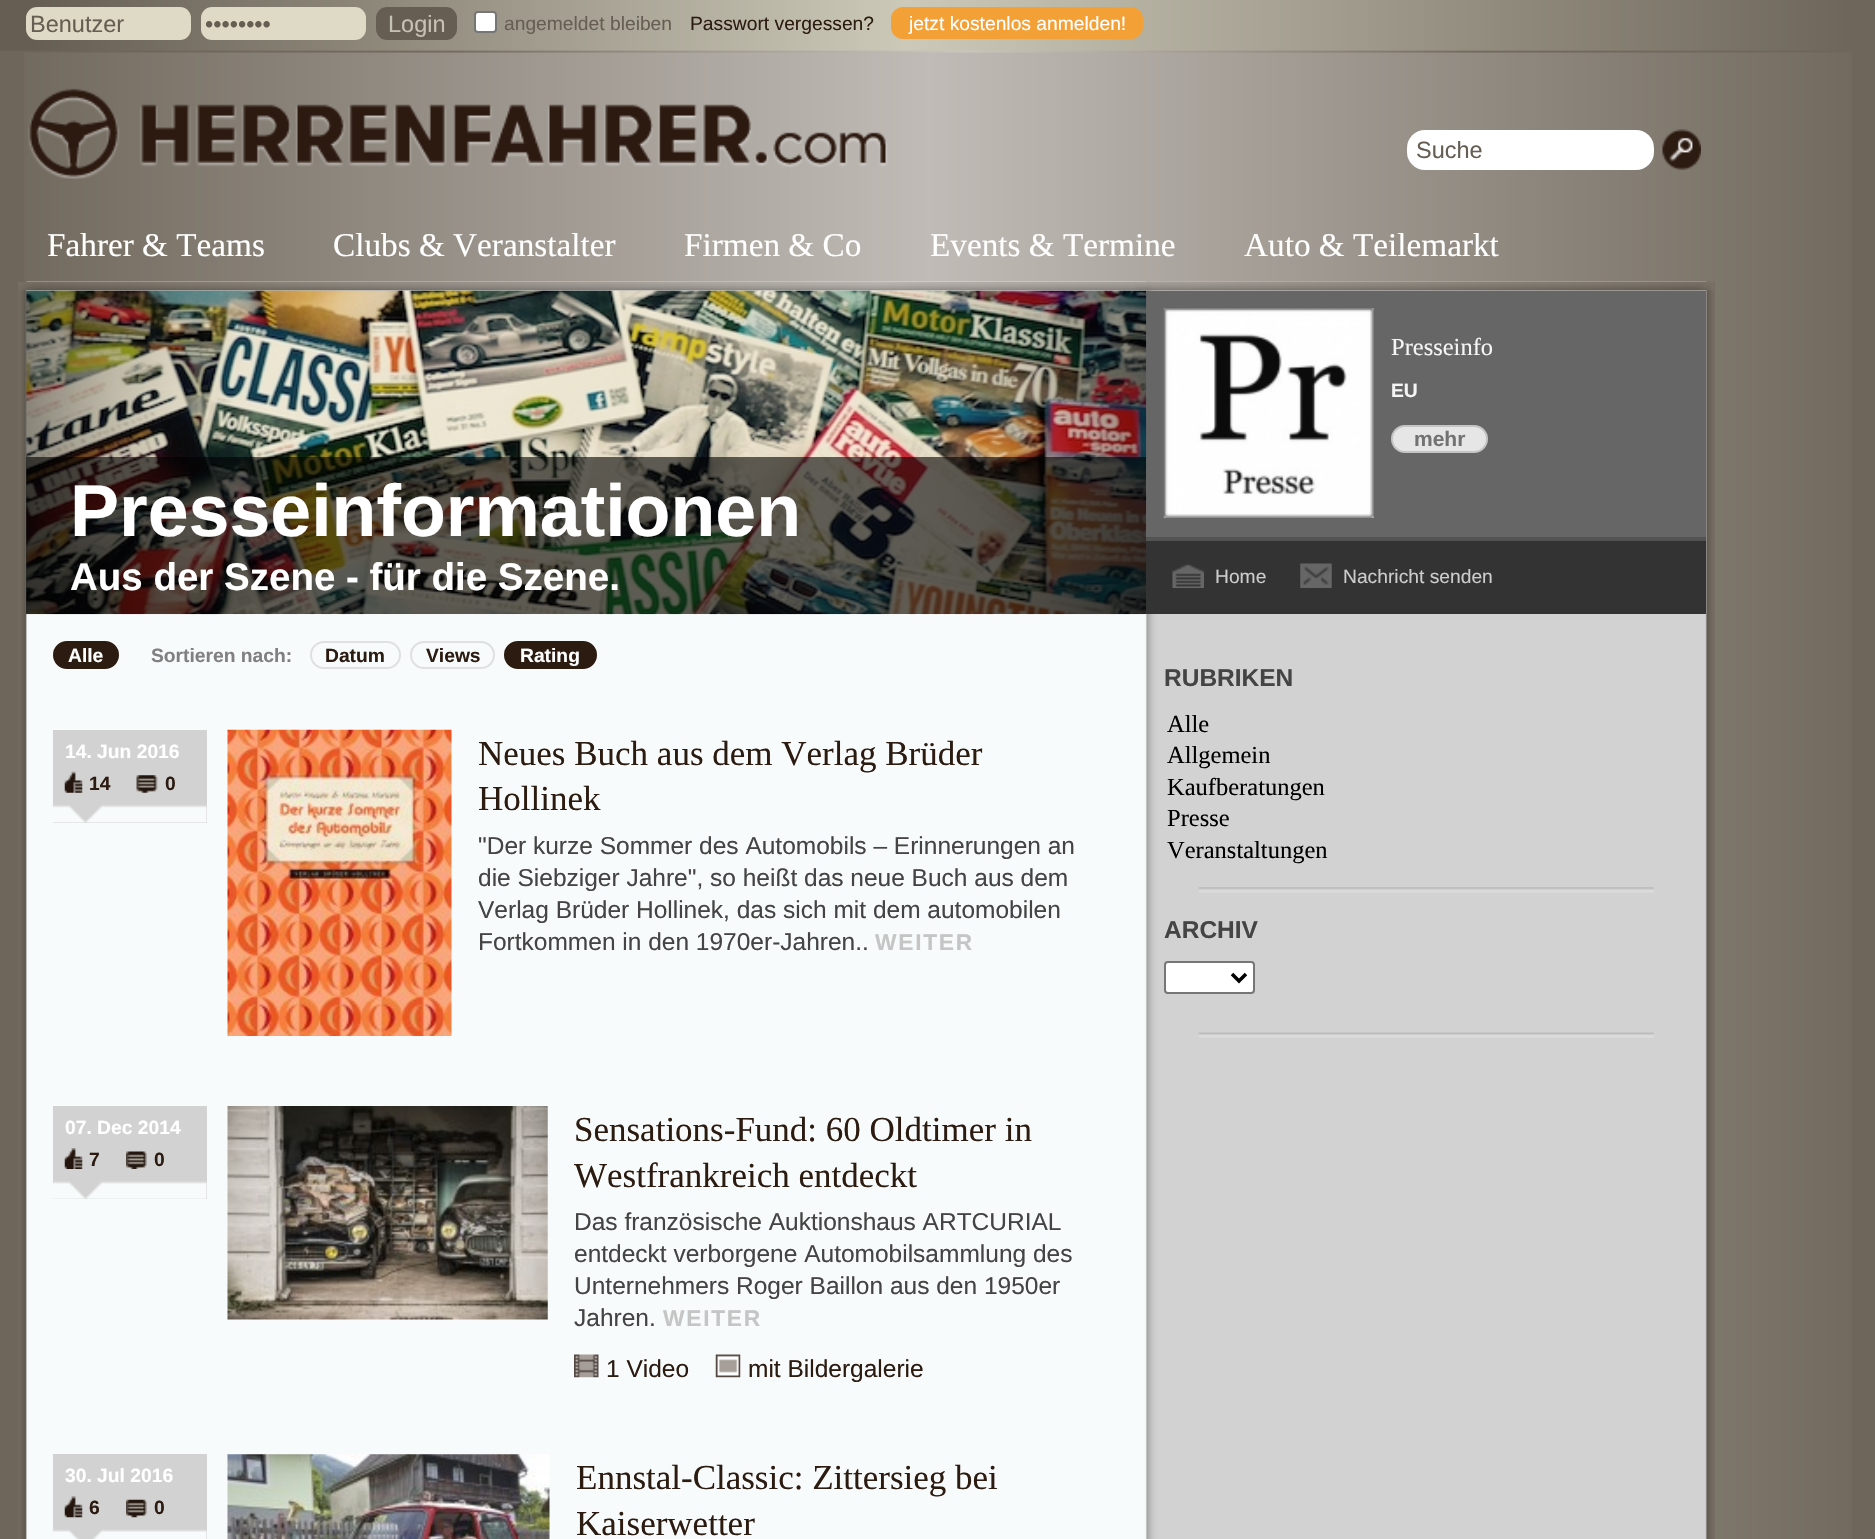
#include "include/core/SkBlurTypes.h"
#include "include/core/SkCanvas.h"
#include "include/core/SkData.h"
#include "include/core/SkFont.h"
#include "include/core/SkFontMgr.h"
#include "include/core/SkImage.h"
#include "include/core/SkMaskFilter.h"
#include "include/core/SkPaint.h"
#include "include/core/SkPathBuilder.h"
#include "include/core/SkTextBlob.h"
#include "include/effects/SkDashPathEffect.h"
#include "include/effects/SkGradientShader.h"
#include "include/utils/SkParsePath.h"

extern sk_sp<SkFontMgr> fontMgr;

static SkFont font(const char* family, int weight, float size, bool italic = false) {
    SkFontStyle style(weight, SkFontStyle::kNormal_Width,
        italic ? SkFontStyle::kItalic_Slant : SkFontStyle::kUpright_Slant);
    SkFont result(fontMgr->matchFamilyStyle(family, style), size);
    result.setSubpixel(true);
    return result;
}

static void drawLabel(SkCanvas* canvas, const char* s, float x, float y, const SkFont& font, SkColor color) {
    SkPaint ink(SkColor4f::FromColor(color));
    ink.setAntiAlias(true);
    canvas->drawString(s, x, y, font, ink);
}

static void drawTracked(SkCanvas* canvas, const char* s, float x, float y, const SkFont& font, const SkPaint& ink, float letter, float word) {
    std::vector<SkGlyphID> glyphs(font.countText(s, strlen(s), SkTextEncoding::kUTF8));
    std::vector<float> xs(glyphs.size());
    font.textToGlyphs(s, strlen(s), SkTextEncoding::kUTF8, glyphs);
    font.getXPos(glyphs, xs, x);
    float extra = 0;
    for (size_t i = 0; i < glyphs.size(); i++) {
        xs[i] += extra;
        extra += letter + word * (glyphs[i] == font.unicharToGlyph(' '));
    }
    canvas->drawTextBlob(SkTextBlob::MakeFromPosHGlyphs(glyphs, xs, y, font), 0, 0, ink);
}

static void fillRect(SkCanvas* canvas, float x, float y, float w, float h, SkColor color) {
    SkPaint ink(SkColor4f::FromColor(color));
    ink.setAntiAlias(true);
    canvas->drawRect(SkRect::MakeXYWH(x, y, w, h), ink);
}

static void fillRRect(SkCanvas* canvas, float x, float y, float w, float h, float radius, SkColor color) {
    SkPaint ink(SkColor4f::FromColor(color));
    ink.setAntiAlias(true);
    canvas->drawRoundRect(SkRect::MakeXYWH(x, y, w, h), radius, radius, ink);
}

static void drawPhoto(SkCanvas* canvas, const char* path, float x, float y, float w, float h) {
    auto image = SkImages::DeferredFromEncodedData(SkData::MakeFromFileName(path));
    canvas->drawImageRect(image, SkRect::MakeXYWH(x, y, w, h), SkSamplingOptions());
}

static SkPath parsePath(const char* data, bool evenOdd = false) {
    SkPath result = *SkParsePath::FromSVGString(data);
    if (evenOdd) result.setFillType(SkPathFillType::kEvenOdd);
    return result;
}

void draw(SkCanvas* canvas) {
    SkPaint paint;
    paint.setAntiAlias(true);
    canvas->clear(0xFF6E665A);
    drawPhoto(canvas, "assets/img1.png", 24, 52, 1828, 1487);
    drawPhoto(canvas, "assets/img2.png", 0, 0, 1852, 53);
    fillRRect(canvas, 26, 7, 165, 33, 11, 0xFFDEDAC6);
    SkFont font1 = font("Liberation Sans", 400, 23.5f);
    drawLabel(canvas, "Benutzer", 30, 32, font1, 0xFF665E53);
    fillRRect(canvas, 201, 7, 165, 33, 11, 0xFFDEDAC6);
    drawLabel(canvas, "••••••••", 205, 32, font1, 0xFF665E53);
    fillRRect(canvas, 376, 7, 81, 33, 11, 0xFF665E53);
    drawLabel(canvas, "Login", 388, 32, font1, 0xFFC6C2B2);
    paint.setColor(0xFFFFFFFF);
    canvas->drawRoundRect(SkRect::MakeXYWH(475, 12, 21, 20), 3, 3, paint);
    paint.setStroke(true);
    paint.setStrokeWidth(2);
    paint.setColor(0xFF767676);
    canvas->drawRoundRect(SkRect::MakeXYWH(475, 12, 21, 20), 3, 3, paint);
    SkFont font2 = font("Liberation Sans", 400, 19.25f);
    drawLabel(canvas, "angemeldet bleiben", 504, 30, font2, 0xFF665E53);
    drawLabel(canvas, "Passwort vergessen?", 690, 30, font2, 0xFF2C1B11);
    fillRRect(canvas, 891, 7, 252, 32, 12, 0xFFF3A036);
    drawLabel(canvas, "jetzt kostenlos anmelden!", 909, 30, font2, 0xFFFFFFFF);
    drawPhoto(canvas, "assets/img3.png", 28, 88, 860, 91);
    fillRRect(canvas, 1407, 130, 247, 40, 18, 0xFFFFFFFF);
    drawLabel(canvas, "Suche", 1416, 158, font1, 0xFF665E53);
    drawPhoto(canvas, "assets/img4.png", 1662, 129, 39, 41);
    SkFont font3 = font("Liberation Serif", 400, 33.25f);
    drawLabel(canvas, "Fahrer & Teams", 47, 256, font3, 0xFFFFFFFF);
    drawLabel(canvas, "Clubs & Veranstalter", 333, 256, font3, 0xFFFFFFFF);
    drawLabel(canvas, "Firmen & Co", 684, 256, font3, 0xFFFFFFFF);
    drawLabel(canvas, "Events & Termine", 930, 256, font3, 0xFFFFFFFF);
    drawLabel(canvas, "Auto & Teilemarkt", 1244, 256, font3, 0xFFFFFFFF);
    drawPhoto(canvas, "assets/img5.png", 18, 281, 1697, 1258);
    drawPhoto(canvas, "assets/img6.png", 18, 282, 1696, 9);
    fillRect(canvas, 26, 291, 1680, 323, 0xFF666666);
    drawPhoto(canvas, "assets/img7.png", 26, 290, 1121, 325);
    fillRect(canvas, 26, 457, 1120, 157, 0x99000000);
    SkFont font4 = font("Liberation Sans", 700, 73.5f);
    drawLabel(canvas, "Presseinformationen", 70, 536, font4, 0xFFFFFFFF);
    SkFont font5 = font("Liberation Sans", 700, 38.5f);
    drawLabel(canvas, "Aus der Szene - für die Szene.", 70, 590, font5, 0xFFFFFFFF);
    drawPhoto(canvas, "assets/img8.png", 1163, 308, 211, 210);
    SkFont font6 = font("Liberation Serif", 400, 24.5f);
    drawLabel(canvas, "Presseinfo", 1391, 355, font6, 0xFFF5F5F5);
    SkFont font7 = font("Liberation Sans", 700, 19.25f);
    drawLabel(canvas, "EU", 1391, 397, font7, 0xFFF5F5F5);
    paint.setStroke(false);
    paint.setColor(0xFFE6E6E6);
    canvas->drawRoundRect(SkRect::MakeXYWH(1392, 426, 95, 26), 13, 13, paint);
    paint.setStroke(true);
    paint.setColor(0xFFC5C5C5);
    canvas->drawRoundRect(SkRect::MakeXYWH(1392, 426, 95, 26), 13, 13, paint);
    SkFont font8 = font("Liberation Sans", 700, 21);
    drawLabel(canvas, "mehr", 1414, 446, font8, 0xFF737273);
    fillRect(canvas, 1146, 541, 560, 73, 0xFF333333);
    fillRect(canvas, 1146, 537, 560, 4, 0xFF535353);
    drawPhoto(canvas, "assets/img9.png", 1172, 563, 32, 25);
    drawLabel(canvas, "Home", 1215, 583, font2, 0xFFCCCCCC);
    drawPhoto(canvas, "assets/img10.png", 1300, 563, 32, 25);
    drawLabel(canvas, "Nachricht senden", 1343, 583, font2, 0xFFCCCCCC);
    paint.setStroke(false);
    paint.setColor(0xFF2C1B11);
    canvas->drawRoundRect(SkRect::MakeXYWH(54, 642, 64, 26), 13, 13, paint);
    paint.setStroke(true);
    canvas->drawRoundRect(SkRect::MakeXYWH(54, 642, 64, 26), 13, 13, paint);
    drawLabel(canvas, "Alle", 68, 662, font7, 0xFFFFFFFF);
    drawLabel(canvas, "Sortieren nach:", 151, 662, font7, 0xFF808080);
    paint.setColor(0xFFDFE1E1);
    canvas->drawRoundRect(SkRect::MakeXYWH(311, 642, 89, 26), 13, 13, paint);
    drawLabel(canvas, "Datum", 325, 662, font7, 0xFF2C1B11);
    canvas->drawRoundRect(SkRect::MakeXYWH(411, 642, 83, 26), 13, 13, paint);
    drawLabel(canvas, "Views", 426, 662, font7, 0xFF2C1B11);
    paint.setStroke(false);
    paint.setColor(0xFF2C1B11);
    canvas->drawRoundRect(SkRect::MakeXYWH(505, 642, 91, 26), 13, 13, paint);
    paint.setStroke(true);
    canvas->drawRoundRect(SkRect::MakeXYWH(505, 642, 91, 26), 13, 13, paint);
    drawLabel(canvas, "Rating", 520, 662, font7, 0xFFFFFFFF);
    fillRect(canvas, 53, 730, 154, 93, 0xFFD2D2D2);
    drawPhoto(canvas, "assets/img11.png", 52, 805, 155, 18);
    drawLabel(canvas, "14. Jun 2016", 65, 758, font7, 0xFFFFFFFF);
    drawPhoto(canvas, "assets/img12.png", 64, 771, 19, 22);
    drawLabel(canvas, "14", 89, 790, font7, 0xFF2C1B11);
    drawPhoto(canvas, "assets/img13.png", 136, 775, 22, 18);
    drawLabel(canvas, "0", 165, 790, font7, 0xFF2C1B11);
    drawPhoto(canvas, "assets/img14.png", 227, 729, 225, 307);
    SkFont font9 = font("Liberation Serif", 400, 35);
    drawLabel(canvas, "Neues Buch aus dem Verlag Brüder", 478, 765, font9, 0xFF2C1B11);
    drawLabel(canvas, "Hollinek", 478, 810, font9, 0xFF2C1B11);
    SkFont font10 = font("Liberation Sans", 400, 24.5f);
    drawLabel(canvas, "\"Der kurze Sommer des Automobils – Erinnerungen an", 478, 854, font10, 0xFF444444);
    drawLabel(canvas, "die Siebziger Jahre\", so heißt das neue Buch aus dem", 478, 886, font10, 0xFF444444);
    drawLabel(canvas, "Verlag Brüder Hollinek, das sich mit dem automobilen", 478, 918, font10, 0xFF444444);
    drawLabel(canvas, "Fortkommen in den 1970er-Jahren..", 478, 950, font10, 0xFF444444);
    SkFont font11 = font("Liberation Sans", 700, 22.75f);
    paint.setStroke(false);
    paint.setColor(0xFFC4C5C5);
    drawTracked(canvas, "WEITER", 875, 950, font11, paint, 1.75f, 0);
    fillRect(canvas, 53, 1106, 154, 93, 0xFFD2D2D2);
    drawPhoto(canvas, "assets/img15.png", 52, 1181, 155, 18);
    drawLabel(canvas, "07. Dec 2014", 65, 1134, font7, 0xFFFFFFFF);
    drawPhoto(canvas, "assets/img16.png", 64, 1148, 19, 21);
    drawLabel(canvas, "7", 89, 1166, font7, 0xFF2C1B11);
    drawPhoto(canvas, "assets/img17.png", 126, 1151, 21, 18);
    drawLabel(canvas, "0", 154, 1166, font7, 0xFF2C1B11);
    drawPhoto(canvas, "assets/img18.png", 227, 1106, 321, 214);
    drawLabel(canvas, "Sensations-Fund: 60 Oldtimer in", 574, 1141, font9, 0xFF2C1B11);
    drawLabel(canvas, "Westfrankreich entdeckt", 574, 1187, font9, 0xFF2C1B11);
    drawLabel(canvas, "Das französische Auktionshaus ARTCURIAL", 574, 1230, font10, 0xFF444444);
    drawLabel(canvas, "entdeckt verborgene Automobilsammlung des", 574, 1262, font10, 0xFF444444);
    drawLabel(canvas, "Unternehmers Roger Baillon aus den 1950er", 574, 1294, font10, 0xFF444444);
    drawLabel(canvas, "Jahren.", 574, 1326, font10, 0xFF444444);
    drawTracked(canvas, "WEITER", 663, 1326, font11, paint, 1.75f, 0);
    drawPhoto(canvas, "assets/img19.png", 574, 1354, 25, 24);
    drawLabel(canvas, "1 Video", 606, 1377, font10, 0xFF2C1B11);
    drawPhoto(canvas, "assets/img20.png", 715, 1354, 26, 24);
    drawLabel(canvas, "mit Bildergalerie", 748, 1377, font10, 0xFF2C1B11);
    fillRect(canvas, 53, 1454, 154, 85, 0xFFD2D2D2);
    drawPhoto(canvas, "assets/img21.png", 52, 1529, 155, 10);
    drawLabel(canvas, "30. Jul 2016", 65, 1482, font7, 0xFFFFFFFF);
    drawPhoto(canvas, "assets/img22.png", 64, 1496, 19, 22);
    drawLabel(canvas, "6", 89, 1514, font7, 0xFF2C1B11);
    drawPhoto(canvas, "assets/img23.png", 126, 1499, 21, 19);
    drawLabel(canvas, "0", 154, 1514, font7, 0xFF2C1B11);
    drawPhoto(canvas, "assets/img24.png", 227, 1454, 323, 85);
    drawLabel(canvas, "Ennstal-Classic: Zittersieg bei", 576, 1489, font9, 0xFF2C1B11);
    drawLabel(canvas, "Kaiserwetter", 576, 1535, font9, 0xFF2C1B11);
    drawPhoto(canvas, "assets/img25.png", 1198, 887, 456, 6);
    SkFont font12 = font("Liberation Sans", 700, 24.5f);
    drawLabel(canvas, "RUBRIKEN", 1164, 686, font12, 0xFF444444);
    drawLabel(canvas, "Alle", 1167, 732, font6, 0xFF000000);
    drawLabel(canvas, "Allgemein", 1167, 763, font6, 0xFF000000);
    drawLabel(canvas, "Kaufberatungen", 1167, 795, font6, 0xFF000000);
    drawLabel(canvas, "Presse", 1167, 826, font6, 0xFF000000);
    drawLabel(canvas, "Veranstaltungen", 1167, 858, font6, 0xFF000000);
    drawPhoto(canvas, "assets/img26.png", 1198, 1032, 456, 6);
    drawLabel(canvas, "ARCHIV", 1164, 938, font12, 0xFF444444);
    paint.setColor(0xFFFFFFFF);
    canvas->drawRoundRect(SkRect::MakeXYWH(1165, 962, 89, 31), 3, 3, paint);
    paint.setStroke(true);
    paint.setColor(0xFF767676);
    canvas->drawRoundRect(SkRect::MakeXYWH(1165, 962, 89, 31), 3, 3, paint);
    paint.setStrokeWidth(3.5f);
    paint.setColor(0xFF000000);
    canvas->drawPath(parsePath("M1232 974L1239 981L1246 974"), paint);
}
